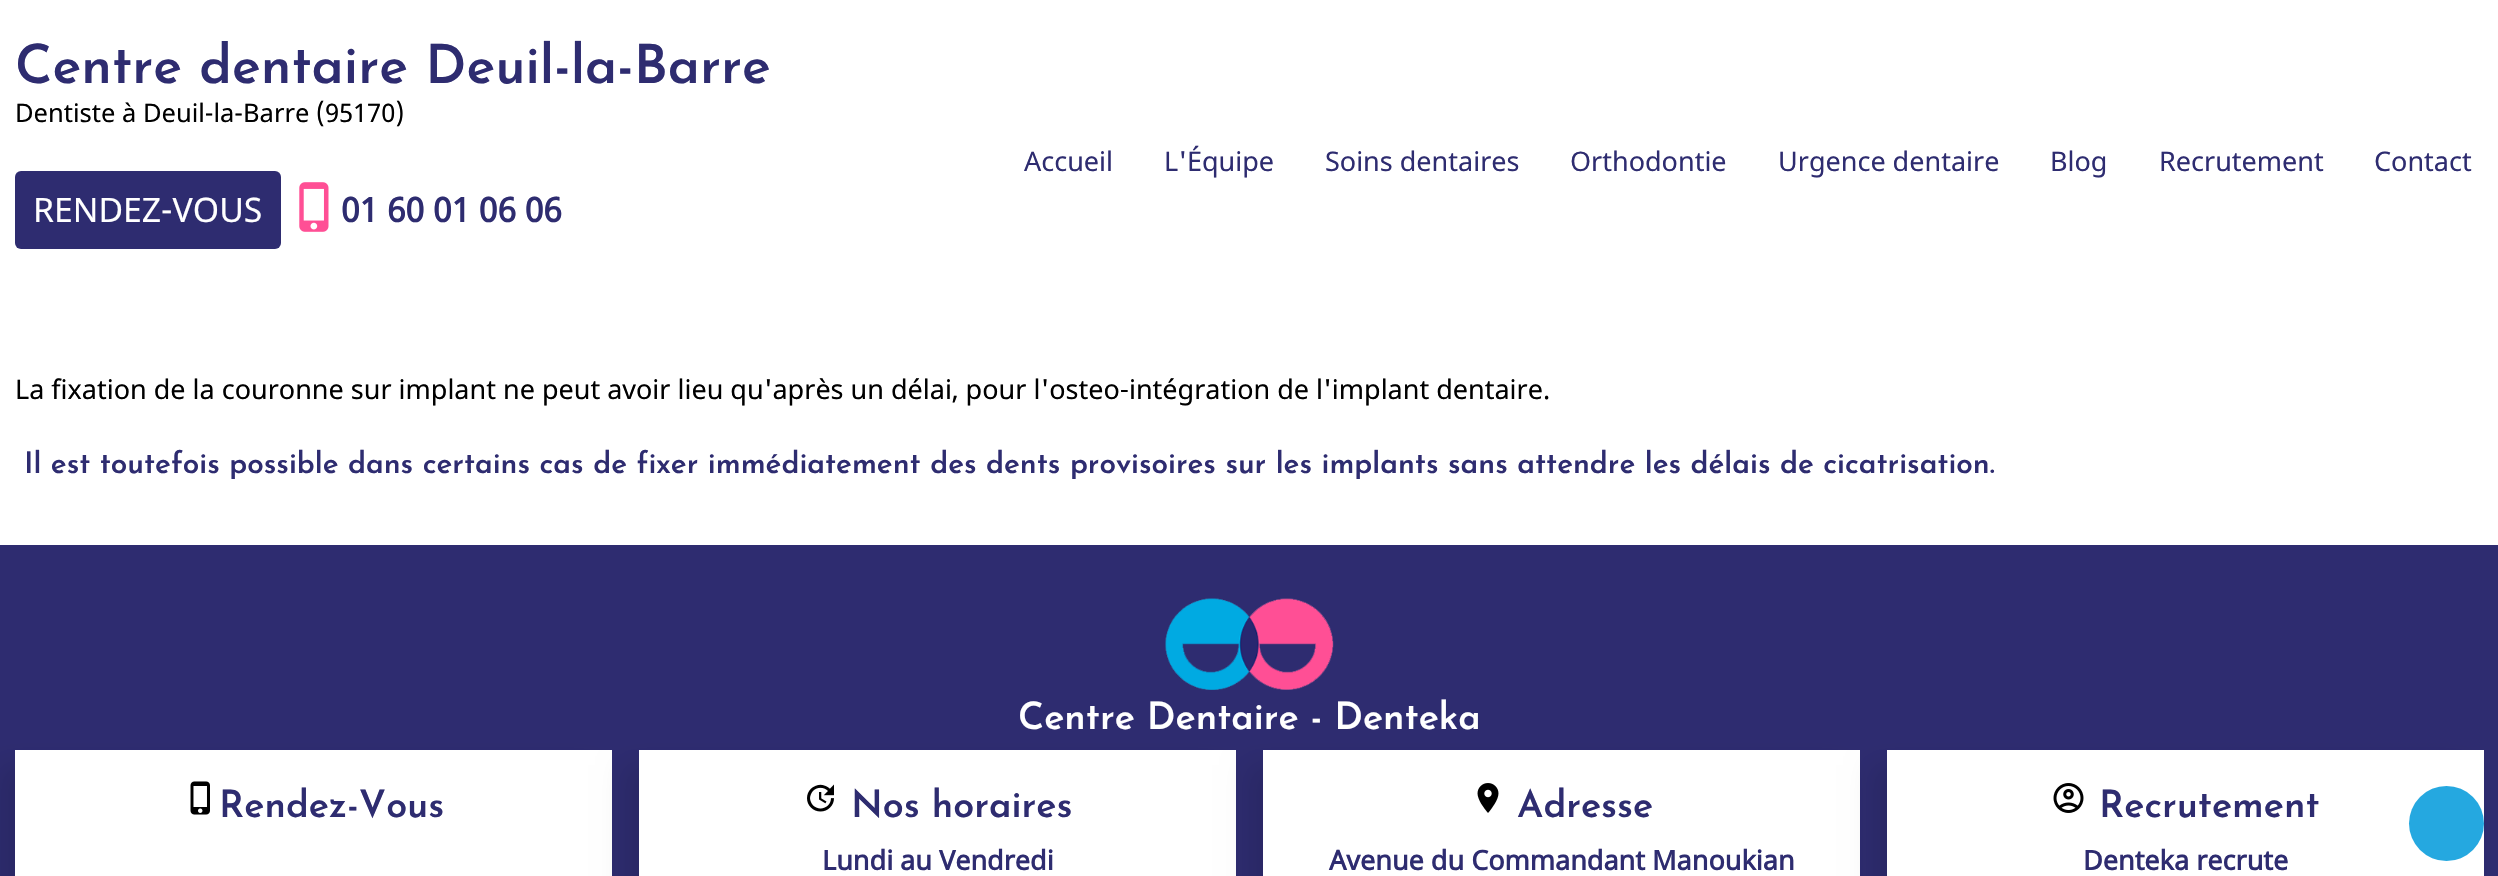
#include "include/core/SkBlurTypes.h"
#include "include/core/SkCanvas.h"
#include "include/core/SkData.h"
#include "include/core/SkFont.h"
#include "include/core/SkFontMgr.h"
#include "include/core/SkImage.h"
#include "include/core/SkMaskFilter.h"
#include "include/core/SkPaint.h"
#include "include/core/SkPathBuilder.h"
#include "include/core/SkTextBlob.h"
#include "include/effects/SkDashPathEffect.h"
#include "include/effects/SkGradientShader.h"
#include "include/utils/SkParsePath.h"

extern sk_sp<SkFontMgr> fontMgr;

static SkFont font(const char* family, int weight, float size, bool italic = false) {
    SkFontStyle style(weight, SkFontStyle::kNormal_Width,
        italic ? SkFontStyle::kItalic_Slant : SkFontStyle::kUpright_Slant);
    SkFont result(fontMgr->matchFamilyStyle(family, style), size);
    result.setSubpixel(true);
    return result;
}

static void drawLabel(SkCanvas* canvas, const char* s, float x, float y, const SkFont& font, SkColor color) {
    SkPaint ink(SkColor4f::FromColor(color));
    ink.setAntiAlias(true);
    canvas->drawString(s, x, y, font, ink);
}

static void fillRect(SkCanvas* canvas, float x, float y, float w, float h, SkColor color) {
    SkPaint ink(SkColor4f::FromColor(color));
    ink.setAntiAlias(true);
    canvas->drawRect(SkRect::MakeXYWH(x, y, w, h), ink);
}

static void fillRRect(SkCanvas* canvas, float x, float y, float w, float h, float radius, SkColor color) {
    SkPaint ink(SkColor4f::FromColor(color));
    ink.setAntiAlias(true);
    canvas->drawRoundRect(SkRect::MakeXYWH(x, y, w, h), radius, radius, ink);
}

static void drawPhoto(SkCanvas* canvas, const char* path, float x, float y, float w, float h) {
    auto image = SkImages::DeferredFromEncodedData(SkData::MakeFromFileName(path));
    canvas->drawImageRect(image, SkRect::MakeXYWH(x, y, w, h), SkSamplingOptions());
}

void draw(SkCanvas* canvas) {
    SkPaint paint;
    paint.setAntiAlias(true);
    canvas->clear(0xFFFFFFFF);
    SkFont font1 = font("Josefin Sans", 100, 54);
    drawLabel(canvas, "Centre dentaire Deuil-la-Barre", 15, 83, font1, 0xFF2E2C70);
    SkFont font2 = font("Noto Sans", 400, 25.5f);
    drawLabel(canvas, "Dentiste à Deuil-la-Barre (95170)", 15, 122, font2, 0xFF000000);
    fillRRect(canvas, 15, 171, 266, 78, 6, 0xFF2E2C70);
    SkFont font3 = font("Noto Sans", 400, 33.75f);
    drawLabel(canvas, "RENDEZ-VOUS", 33, 222, font3, 0xFFFFFFFF);
    drawPhoto(canvas, "assets/img1.png", 299, 182, 30, 50);
    SkFont font4 = font("Noto Sans", 700, 33.75f);
    drawLabel(canvas, "01 60 01 06 06", 341, 222, font4, 0xFF2E2C70);
    SkFont font5 = font("Noto Sans", 400, 27);
    drawLabel(canvas, "Accueil", 1024, 171, font5, 0xFF2E2C70);
    drawLabel(canvas, "L'Équipe", 1164, 171, font5, 0xFF2E2C70);
    drawLabel(canvas, "Soins dentaires", 1325, 171, font5, 0xFF2E2C70);
    drawLabel(canvas, "Orthodontie", 1570, 171, font5, 0xFF2E2C70);
    drawLabel(canvas, "Urgence dentaire", 1778, 171, font5, 0xFF2E2C70);
    drawLabel(canvas, "Blog", 2050, 171, font5, 0xFF2E2C70);
    drawLabel(canvas, "Recrutement", 2159, 171, font5, 0xFF2E2C70);
    drawLabel(canvas, "Contact", 2374, 171, font5, 0xFF2E2C70);
    drawLabel(canvas, "La fixation de la couronne sur implant ne peut avoir lieu qu'après un délai, pour l'osteo-intégration de l'implant dentaire.", 15, 399, font5, 0xFF000000);
    SkFont font6 = font("Josefin Sans", 100, 29.7f);
    drawLabel(canvas, "Il est toutefois possible dans certains cas de fixer immédiatement des dents provisoires sur les implants sans attendre les délais de cicatrisation.", 24, 473, font6, 0xFF2E2C70);
    fillRect(canvas, 0, 545, 2498, 331, 0xFF2E2C70);
    drawPhoto(canvas, "assets/img2.png", 1165, 598, 169, 92);
    SkFont font7 = font("Josefin Sans", 100, 37.75f);
    drawLabel(canvas, "Centre Dentaire - Denteka", 1018, 729, font7, 0xFFFFFFFF);
    paint.setColor(0x1A000000);
    paint.setMaskFilter(SkMaskFilter::MakeBlur(kNormal_SkBlurStyle, 12));
    canvas->drawRect(SkRect::MakeXYWH(0, 765, 597, 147), paint);
    paint.setMaskFilter(nullptr);
    fillRect(canvas, 15, 750, 597, 126, 0xFFFFFFFF);
    drawPhoto(canvas, "assets/img3.png", 190, 781, 20, 34);
    drawLabel(canvas, "Rendez-Vous", 219, 817, font7, 0xFF2E2C70);
    paint.setMaskFilter(SkMaskFilter::MakeBlur(kNormal_SkBlurStyle, 12));
    canvas->drawRect(SkRect::MakeXYWH(624, 765, 597, 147), paint);
    paint.setMaskFilter(nullptr);
    fillRect(canvas, 639, 750, 597, 126, 0xFFFFFFFF);
    drawPhoto(canvas, "assets/img4.png", 807, 784, 27, 28);
    drawLabel(canvas, "Nos horaires", 851, 817, font7, 0xFF2E2C70);
    SkFont font8 = font("Noto Sans", 700, 27);
    drawLabel(canvas, "Lundi au Vendredi", 822, 870, font8, 0xFF2E2C70);
    paint.setMaskFilter(SkMaskFilter::MakeBlur(kNormal_SkBlurStyle, 12));
    canvas->drawRect(SkRect::MakeXYWH(1248, 765, 597, 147), paint);
    paint.setMaskFilter(nullptr);
    fillRect(canvas, 1263, 750, 597, 126, 0xFFFFFFFF);
    drawPhoto(canvas, "assets/img5.png", 1477, 783, 22, 30);
    drawLabel(canvas, "Adresse", 1517, 817, font7, 0xFF2E2C70);
    drawLabel(canvas, "Avenue du Commandant Manoukian", 1329, 870, font8, 0xFF2E2C70);
    paint.setMaskFilter(SkMaskFilter::MakeBlur(kNormal_SkBlurStyle, 12));
    canvas->drawRect(SkRect::MakeXYWH(1872, 765, 597, 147), paint);
    paint.setMaskFilter(nullptr);
    fillRect(canvas, 1887, 750, 597, 126, 0xFFFFFFFF);
    drawPhoto(canvas, "assets/img6.png", 2053, 783, 31, 30);
    drawLabel(canvas, "Recrutement", 2099, 817, font7, 0xFF2E2C70);
    drawLabel(canvas, "Denteka recrute", 2083, 870, font8, 0xFF2E2C70);
    paint.setColor(0xFF25A8E0);
    canvas->drawCircle(2446.5f, 823.5f, 37.5f, paint);
}
